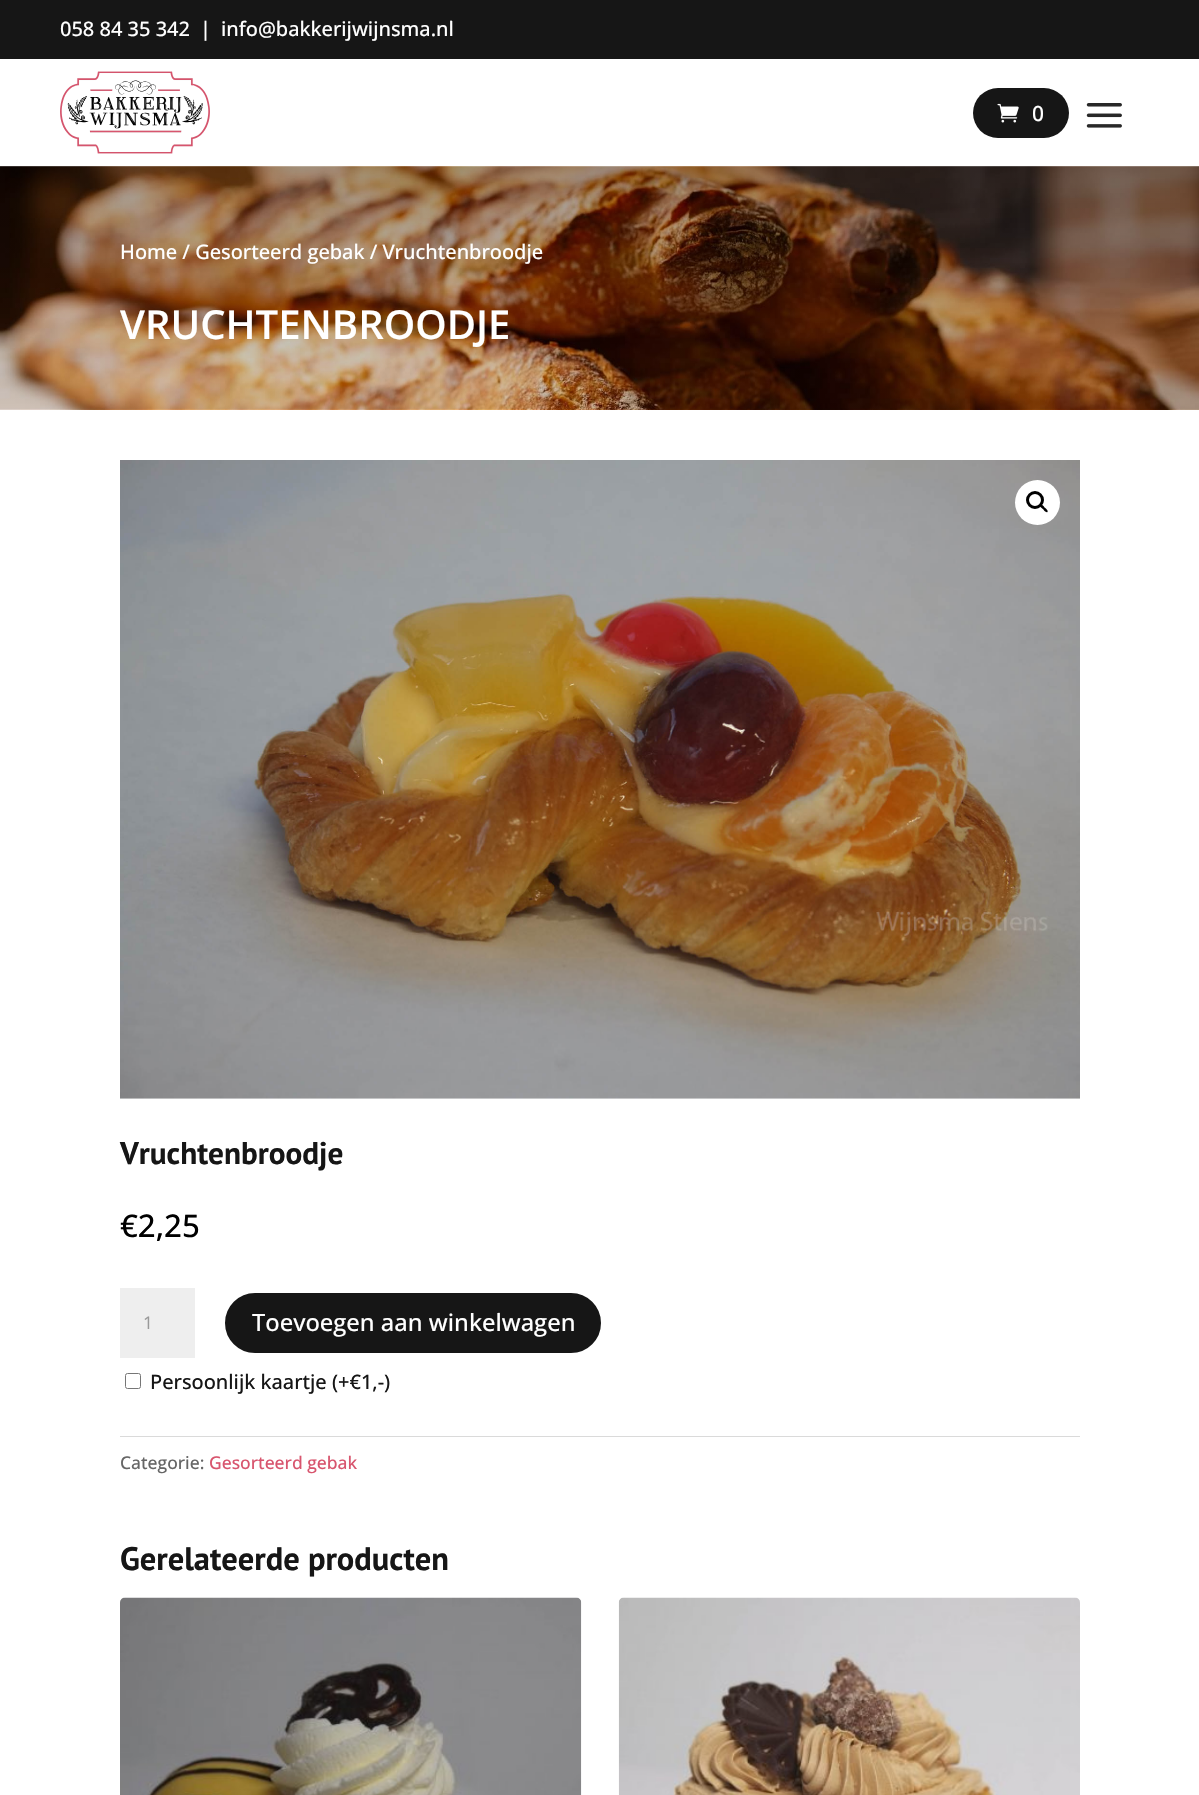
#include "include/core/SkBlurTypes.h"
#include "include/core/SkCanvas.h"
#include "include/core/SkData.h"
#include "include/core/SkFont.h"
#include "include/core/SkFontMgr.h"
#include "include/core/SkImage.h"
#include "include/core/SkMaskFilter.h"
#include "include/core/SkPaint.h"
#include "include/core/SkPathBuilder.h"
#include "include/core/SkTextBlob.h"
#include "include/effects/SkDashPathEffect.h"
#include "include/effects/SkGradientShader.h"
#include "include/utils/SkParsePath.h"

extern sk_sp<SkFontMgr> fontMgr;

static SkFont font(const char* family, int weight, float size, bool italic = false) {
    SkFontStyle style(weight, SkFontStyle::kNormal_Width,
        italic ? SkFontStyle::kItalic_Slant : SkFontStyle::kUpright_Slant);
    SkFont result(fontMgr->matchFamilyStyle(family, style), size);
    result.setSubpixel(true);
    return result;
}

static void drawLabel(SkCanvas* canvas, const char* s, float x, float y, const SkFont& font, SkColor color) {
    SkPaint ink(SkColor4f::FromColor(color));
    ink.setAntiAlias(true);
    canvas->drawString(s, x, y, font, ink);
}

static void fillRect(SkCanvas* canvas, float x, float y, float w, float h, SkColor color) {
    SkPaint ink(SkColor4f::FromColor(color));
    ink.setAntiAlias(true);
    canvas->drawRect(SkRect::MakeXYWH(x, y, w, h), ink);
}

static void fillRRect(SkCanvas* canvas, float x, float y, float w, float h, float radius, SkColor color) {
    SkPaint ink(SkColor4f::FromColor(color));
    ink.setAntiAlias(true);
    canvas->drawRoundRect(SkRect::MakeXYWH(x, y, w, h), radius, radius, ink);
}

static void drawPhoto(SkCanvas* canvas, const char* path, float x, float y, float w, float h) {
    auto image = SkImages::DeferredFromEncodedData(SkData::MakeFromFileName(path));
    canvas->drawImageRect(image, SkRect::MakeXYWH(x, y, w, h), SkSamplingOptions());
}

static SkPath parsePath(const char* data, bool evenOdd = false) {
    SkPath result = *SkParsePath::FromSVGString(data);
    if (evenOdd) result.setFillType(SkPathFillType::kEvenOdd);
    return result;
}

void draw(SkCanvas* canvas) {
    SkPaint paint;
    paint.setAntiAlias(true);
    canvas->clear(0xFFFFFFFF);
    fillRect(canvas, 0, 0, 1199, 59, 0xFF161616);
    SkFont font1 = font("Open Sans", 500, 20);
    drawLabel(canvas, "058 84 35 342", 60, 36, font1, 0xFFFFFFFF);
    drawLabel(canvas, "|", 200, 36, font1, 0xFFFFFFFF);
    drawLabel(canvas, "info@bakkerijwijnsma.nl", 221, 36, font1, 0xFFFFFFFF);
    drawPhoto(canvas, "assets/img1.png", 60, 71, 150, 83);
    fillRRect(canvas, 973, 88, 96, 50, 25, 0xFF161616);
    drawPhoto(canvas, "assets/img2.png", 997, 103, 22, 20);
    SkFont font2 = font("Open Sans", 500, 21);
    drawLabel(canvas, "0", 1032, 121, font2, 0xFFFFFFFF);
    drawPhoto(canvas, "assets/img3.png", 1086, 103, 36, 25);
    drawPhoto(canvas, "assets/img4.png", 0, 166, 1199, 244);
    drawLabel(canvas, "Home / Gesorteerd gebak / Vruchtenbroodje", 120, 259, font1, 0xFFFFFFFF);
    SkFont font3 = font("Open Sans", 600, 40);
    drawLabel(canvas, "VRUCHTENBROODJE", 120, 339, font3, 0xFFFFFFFF);
    drawPhoto(canvas, "assets/img5.png", 120, 460, 960, 639);
    paint.setColor(0xFFFFFFFF);
    canvas->drawCircle(1037.5f, 502.5f, 22.5f, paint);
    paint.setStroke(true);
    paint.setStrokeWidth(3);
    paint.setColor(0xFF000000);
    canvas->drawCircle(1035, 500, 7.5f, paint);
    paint.setStroke(false);
    canvas->drawPath(parsePath("M1040 504.5C1041.5 503.5 1044 506.5 1044.5 507.5C1045.5 508 1048.5 510.5 1047.5 512C1046 513 1043.5 510 1043 509C1042 508.5 1039 506 1040 504.5Z"), paint);
    SkFont font4 = font("PT Sans", 700, 31.25f);
    drawLabel(canvas, "Vruchtenbroodje", 120, 1164, font4, 0xFF161616);
    SkFont font5 = font("Open Sans", 500, 31.25f);
    drawLabel(canvas, "€2,25", 120, 1237, font5, 0xFF000000);
    fillRect(canvas, 120, 1288, 75, 70, 0xFFEEEEEE);
    SkFont font6 = font("Open Sans", 400, 17.5f);
    drawLabel(canvas, "1", 143, 1329, font6, 0xFF999999);
    paint.setColor(0xFF161616);
    canvas->drawRoundRect(SkRect::MakeXYWH(226.5f, 1294.5f, 373, 57), 28.5f, 28.5f, paint);
    paint.setStroke(true);
    canvas->drawRoundRect(SkRect::MakeXYWH(226.5f, 1294.5f, 373, 57), 28.5f, 28.5f, paint);
    SkFont font7 = font("Open Sans", 500, 23.75f);
    drawLabel(canvas, "Toevoegen aan winkelwagen", 252, 1331, font7, 0xFFFFFFFF);
    paint.setStrokeWidth(1);
    paint.setColor(0xFF767676);
    canvas->drawRoundRect(SkRect::MakeXYWH(125.5f, 1373.5f, 15, 15), 2, 2, paint);
    drawLabel(canvas, "Persoonlijk kaartje (+€1,-)", 150, 1389, font1, 0xFF161616);
    fillRect(canvas, 120, 1436, 960, 1, 0xFFDADADA);
    SkFont font8 = font("Open Sans", 500, 17.5f);
    drawLabel(canvas, "Categorie:", 120, 1469, font8, 0xFF666666);
    drawLabel(canvas, "Gesorteerd gebak", 209, 1469, font8, 0xFFD8556E);
    SkFont font9 = font("PT Sans", 700, 32.5f);
    drawLabel(canvas, "Gerelateerde producten", 120, 1570, font9, 0xFF161616);
    drawPhoto(canvas, "assets/img6.png", 120, 1597, 462, 198);
    drawPhoto(canvas, "assets/img7.png", 618, 1597, 462, 198);
}
